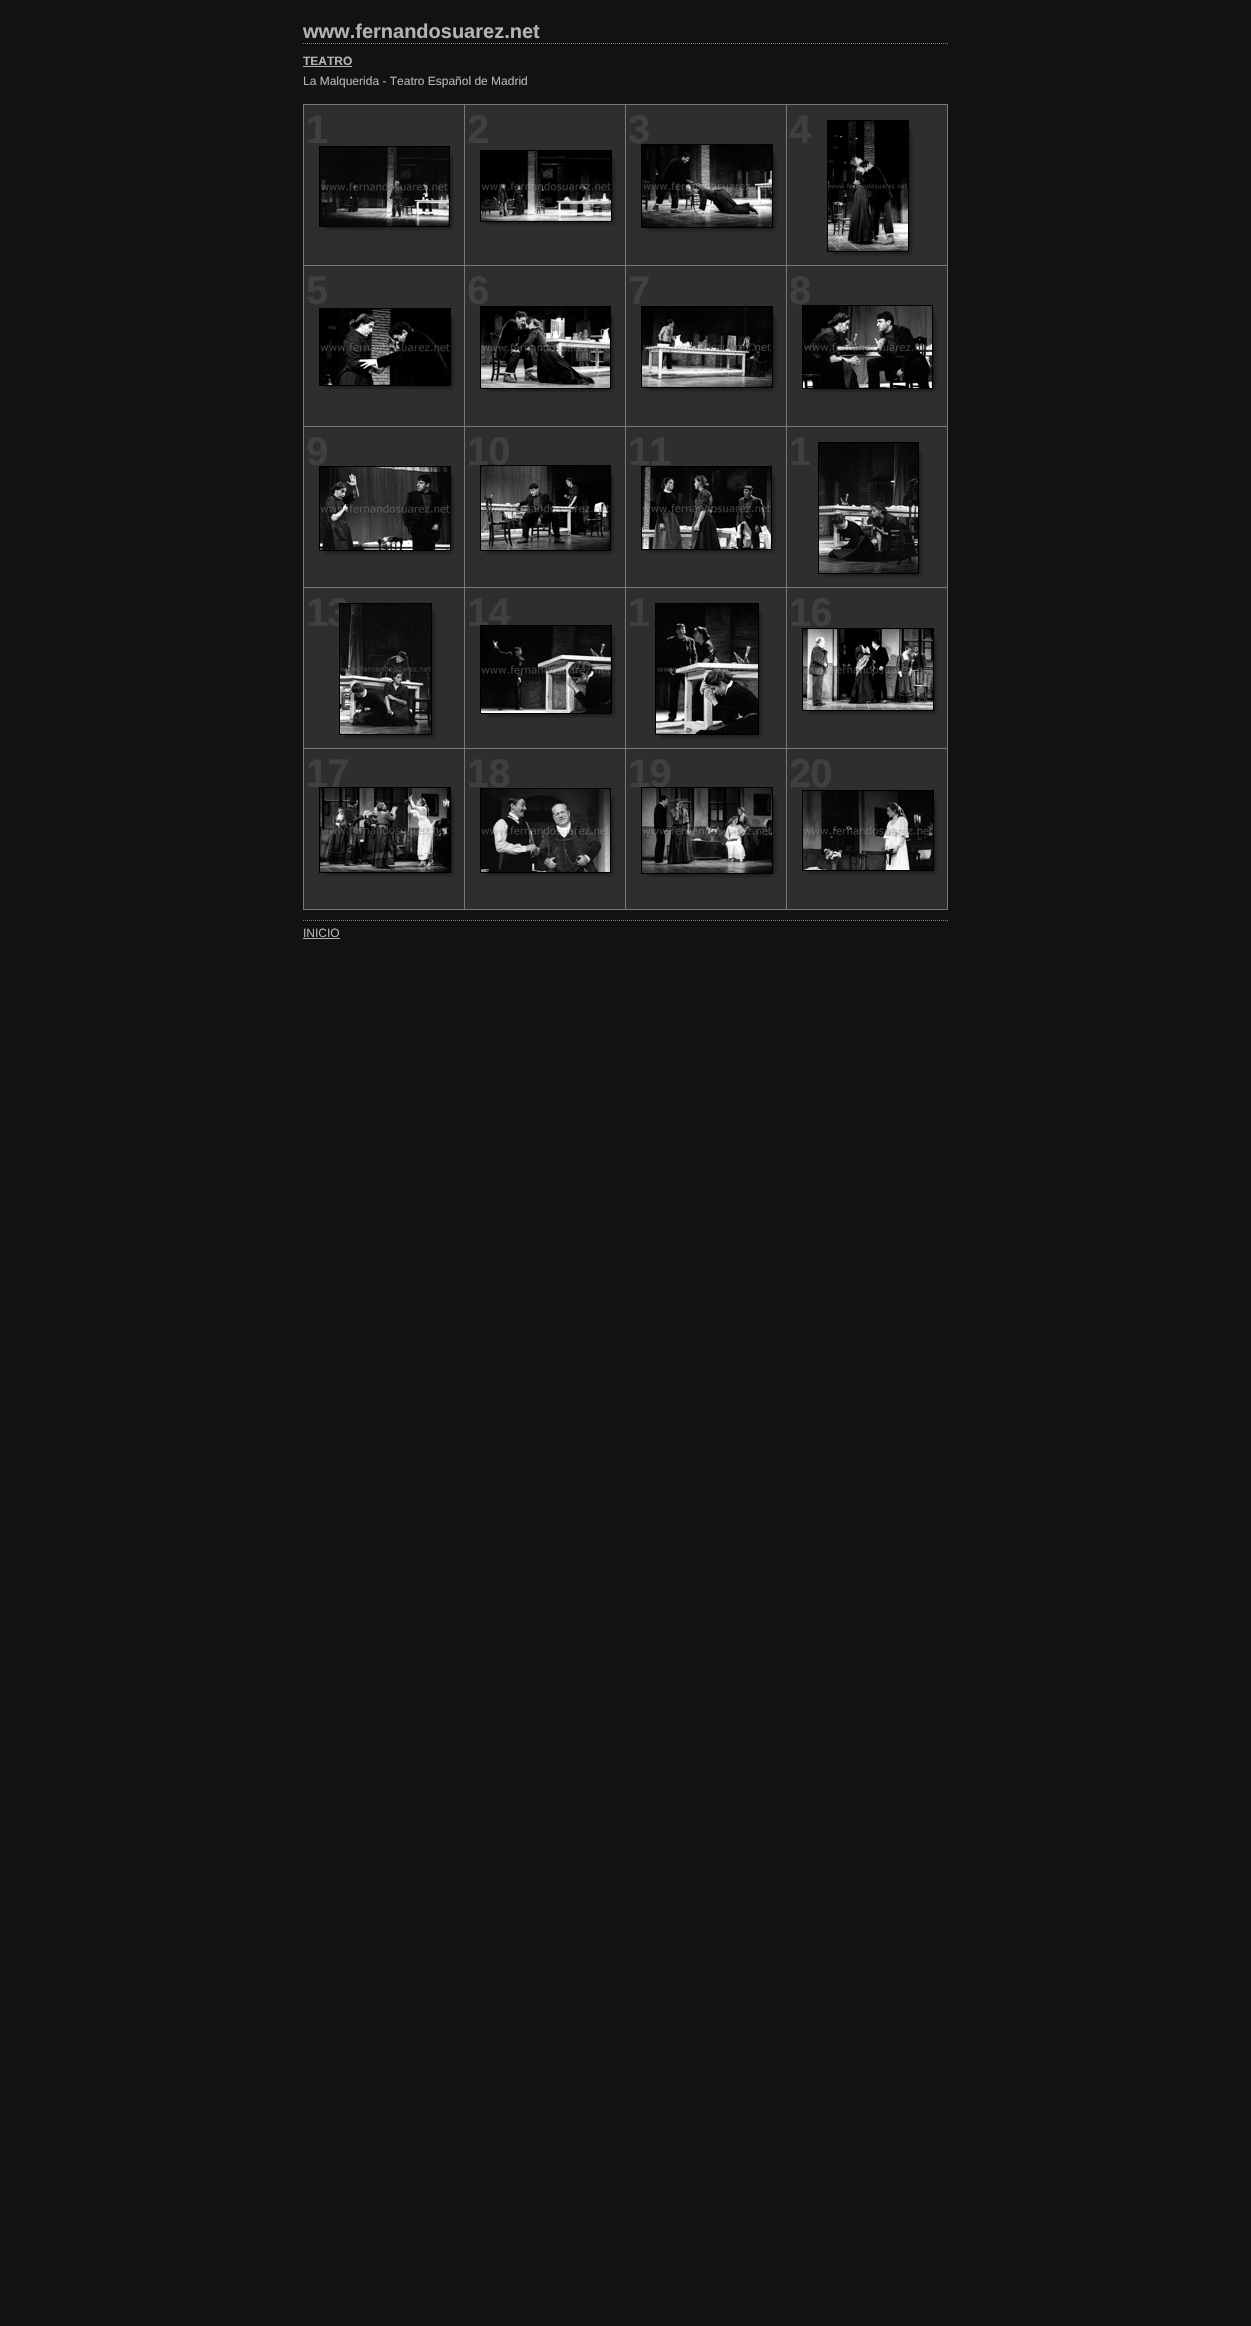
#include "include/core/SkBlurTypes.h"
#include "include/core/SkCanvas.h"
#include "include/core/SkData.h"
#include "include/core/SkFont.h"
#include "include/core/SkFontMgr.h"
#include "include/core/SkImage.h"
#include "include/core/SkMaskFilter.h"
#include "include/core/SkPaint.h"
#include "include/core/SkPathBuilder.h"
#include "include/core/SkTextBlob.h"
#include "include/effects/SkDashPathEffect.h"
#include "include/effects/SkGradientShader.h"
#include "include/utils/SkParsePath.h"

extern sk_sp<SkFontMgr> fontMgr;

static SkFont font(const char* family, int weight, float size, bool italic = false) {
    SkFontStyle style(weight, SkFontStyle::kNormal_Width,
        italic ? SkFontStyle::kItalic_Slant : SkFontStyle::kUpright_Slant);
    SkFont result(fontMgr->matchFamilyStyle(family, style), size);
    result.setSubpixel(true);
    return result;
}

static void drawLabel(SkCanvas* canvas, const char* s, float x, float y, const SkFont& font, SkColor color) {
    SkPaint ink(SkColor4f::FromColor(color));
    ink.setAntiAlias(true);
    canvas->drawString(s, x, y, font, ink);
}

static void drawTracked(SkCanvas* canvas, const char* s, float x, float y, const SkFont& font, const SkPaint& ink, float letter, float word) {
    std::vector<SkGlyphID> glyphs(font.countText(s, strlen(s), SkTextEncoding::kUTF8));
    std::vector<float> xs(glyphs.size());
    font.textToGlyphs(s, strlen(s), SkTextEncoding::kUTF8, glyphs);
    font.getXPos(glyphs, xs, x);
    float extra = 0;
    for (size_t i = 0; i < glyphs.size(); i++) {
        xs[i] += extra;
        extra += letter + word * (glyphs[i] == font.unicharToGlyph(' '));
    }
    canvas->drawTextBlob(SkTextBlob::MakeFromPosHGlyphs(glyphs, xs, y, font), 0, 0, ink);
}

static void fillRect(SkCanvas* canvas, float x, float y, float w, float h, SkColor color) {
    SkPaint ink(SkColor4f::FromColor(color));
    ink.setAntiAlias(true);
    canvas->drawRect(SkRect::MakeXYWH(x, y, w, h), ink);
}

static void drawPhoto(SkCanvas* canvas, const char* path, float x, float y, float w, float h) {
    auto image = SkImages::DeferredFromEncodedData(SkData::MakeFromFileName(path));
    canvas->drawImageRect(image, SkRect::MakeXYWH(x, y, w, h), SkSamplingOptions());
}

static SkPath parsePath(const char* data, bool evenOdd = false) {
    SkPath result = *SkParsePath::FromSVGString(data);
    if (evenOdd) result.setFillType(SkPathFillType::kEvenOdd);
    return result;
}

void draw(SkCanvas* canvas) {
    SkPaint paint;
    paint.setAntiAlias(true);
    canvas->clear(0xFF121212);
    paint.setStroke(true);
    paint.setStrokeWidth(1);
    paint.setColor(0xFF7F7F7F);
    paint.setPathEffect(SkDashPathEffect::Make({{1, 1}}, 0));
    canvas->drawPath(parsePath("M303 43.5H948"), paint);
    paint.setPathEffect(nullptr);
    SkFont font1 = font("Liberation Sans", 700, 20);
    drawLabel(canvas, "www.fernandosuarez.net", 303, 38, font1, 0xFFB3B3B3);
    SkFont font2 = font("Liberation Sans", 700, 12);
    drawLabel(canvas, "TEATRO", 303, 65, font2, 0xFFB3B3B3);
    fillRect(canvas, 303, 66, 49, 1, 0xFFB3B3B3);
    SkFont font3 = font("Liberation Sans", 400, 12);
    drawLabel(canvas, "La Malquerida - Teatro Español de Madrid", 303, 85, font3, 0xFFB3B3B3);
    paint.setPathEffect(SkDashPathEffect::Make({{1, 1}}, 0));
    canvas->drawPath(parsePath("M303 920.5H948"), paint);
    paint.setPathEffect(nullptr);
    fillRect(canvas, 304, 105, 160, 160, 0xFF2E2E2E);
    fillRect(canvas, 303, 104, 645, 1, 0xFF787878);
    fillRect(canvas, 303, 104, 1, 161, 0xFF787878);
    SkFont font4 = font("Liberation Sans", 700, 40);
    paint.setStroke(false);
    paint.setColor(0xFF404040);
    drawTracked(canvas, "1", 306, 143, font4, paint, -1, 0);
    drawPhoto(canvas, "assets/img1.png", 329, 159, 125, 72);
    paint.setStroke(true);
    paint.setColor(0xFF000000);
    canvas->drawRect(SkRect::MakeXYWH(319.5f, 146.5f, 130, 80), paint);
    drawPhoto(canvas, "assets/img2.png", 320, 147, 129, 79);
    drawPhoto(canvas, "assets/img3.png", 450, 153, 4, 6);
    drawPhoto(canvas, "assets/img4.png", 323, 227, 6, 4);
    fillRect(canvas, 465, 105, 160, 160, 0xFF2E2E2E);
    fillRect(canvas, 464, 104, 1, 161, 0xFF787878);
    paint.setStroke(false);
    paint.setColor(0xFF404040);
    drawTracked(canvas, "2", 467, 143, font4, paint, -1, 0);
    drawPhoto(canvas, "assets/img5.png", 490, 163, 126, 63);
    paint.setStroke(true);
    paint.setColor(0xFF000000);
    canvas->drawRect(SkRect::MakeXYWH(480.5f, 150.5f, 131, 71), paint);
    drawPhoto(canvas, "assets/img6.png", 481, 151, 130, 70);
    drawPhoto(canvas, "assets/img3.png", 612, 157, 4, 6);
    drawPhoto(canvas, "assets/img4.png", 484, 222, 6, 4);
    fillRect(canvas, 626, 105, 160, 160, 0xFF2E2E2E);
    fillRect(canvas, 625, 104, 1, 161, 0xFF787878);
    paint.setStroke(false);
    paint.setColor(0xFF404040);
    drawTracked(canvas, "3", 628, 143, font4, paint, -1, 0);
    drawPhoto(canvas, "assets/img7.png", 651, 157, 126, 75);
    paint.setStroke(true);
    paint.setColor(0xFF000000);
    canvas->drawRect(SkRect::MakeXYWH(641.5f, 144.5f, 131, 83), paint);
    drawPhoto(canvas, "assets/img8.png", 642, 145, 130, 82);
    drawPhoto(canvas, "assets/img3.png", 773, 151, 4, 6);
    drawPhoto(canvas, "assets/img4.png", 645, 228, 6, 4);
    fillRect(canvas, 787, 105, 160, 160, 0xFF2E2E2E);
    fillRect(canvas, 947, 104, 1, 161, 0xFF787878);
    fillRect(canvas, 786, 104, 1, 161, 0xFF787878);
    paint.setStroke(false);
    paint.setColor(0xFF404040);
    drawTracked(canvas, "4", 789, 143, font4, paint, -1, 0);
    drawPhoto(canvas, "assets/img9.png", 837, 133, 76, 123);
    paint.setStroke(true);
    paint.setColor(0xFF000000);
    canvas->drawRect(SkRect::MakeXYWH(827.5f, 120.5f, 81, 131), paint);
    drawPhoto(canvas, "assets/img10.png", 828, 121, 80, 130);
    drawPhoto(canvas, "assets/img3.png", 909, 127, 4, 6);
    drawPhoto(canvas, "assets/img4.png", 831, 252, 6, 4);
    fillRect(canvas, 304, 266, 160, 160, 0xFF2E2E2E);
    fillRect(canvas, 303, 265, 645, 1, 0xFF787878);
    fillRect(canvas, 303, 265, 1, 161, 0xFF787878);
    paint.setStroke(false);
    paint.setColor(0xFF404040);
    drawTracked(canvas, "5", 306, 304, font4, paint, -1, 0);
    drawPhoto(canvas, "assets/img11.png", 329, 321, 126, 69);
    paint.setStroke(true);
    paint.setColor(0xFF000000);
    canvas->drawRect(SkRect::MakeXYWH(319.5f, 308.5f, 131, 77), paint);
    drawPhoto(canvas, "assets/img12.png", 320, 309, 130, 76);
    drawPhoto(canvas, "assets/img3.png", 451, 315, 4, 6);
    drawPhoto(canvas, "assets/img4.png", 323, 386, 6, 4);
    fillRect(canvas, 465, 266, 160, 160, 0xFF2E2E2E);
    fillRect(canvas, 464, 265, 1, 161, 0xFF787878);
    paint.setStroke(false);
    paint.setColor(0xFF404040);
    drawTracked(canvas, "6", 467, 304, font4, paint, -1, 0);
    drawPhoto(canvas, "assets/img13.png", 490, 319, 125, 74);
    paint.setStroke(true);
    paint.setColor(0xFF000000);
    canvas->drawRect(SkRect::MakeXYWH(480.5f, 306.5f, 130, 82), paint);
    drawPhoto(canvas, "assets/img14.png", 481, 307, 129, 81);
    drawPhoto(canvas, "assets/img3.png", 611, 313, 4, 6);
    drawPhoto(canvas, "assets/img4.png", 484, 389, 6, 4);
    fillRect(canvas, 626, 266, 160, 160, 0xFF2E2E2E);
    fillRect(canvas, 625, 265, 1, 161, 0xFF787878);
    paint.setStroke(false);
    paint.setColor(0xFF404040);
    drawTracked(canvas, "7", 628, 304, font4, paint, -1, 0);
    drawPhoto(canvas, "assets/img15.png", 651, 319, 126, 73);
    paint.setStroke(true);
    paint.setColor(0xFF000000);
    canvas->drawRect(SkRect::MakeXYWH(641.5f, 306.5f, 131, 81), paint);
    drawPhoto(canvas, "assets/img16.png", 642, 307, 130, 80);
    drawPhoto(canvas, "assets/img3.png", 773, 313, 4, 6);
    drawPhoto(canvas, "assets/img4.png", 645, 388, 6, 4);
    fillRect(canvas, 787, 266, 160, 160, 0xFF2E2E2E);
    fillRect(canvas, 947, 265, 1, 161, 0xFF787878);
    fillRect(canvas, 786, 265, 1, 161, 0xFF787878);
    paint.setStroke(false);
    paint.setColor(0xFF404040);
    drawTracked(canvas, "8", 789, 304, font4, paint, -1, 0);
    drawPhoto(canvas, "assets/img17.png", 812, 318, 125, 75);
    paint.setStroke(true);
    paint.setColor(0xFF000000);
    canvas->drawRect(SkRect::MakeXYWH(802.5f, 305.5f, 130, 83), paint);
    drawPhoto(canvas, "assets/img18.png", 803, 306, 129, 82);
    drawPhoto(canvas, "assets/img3.png", 933, 312, 4, 6);
    drawPhoto(canvas, "assets/img4.png", 806, 389, 6, 4);
    fillRect(canvas, 304, 427, 160, 160, 0xFF2E2E2E);
    fillRect(canvas, 303, 426, 645, 1, 0xFF787878);
    fillRect(canvas, 303, 426, 1, 161, 0xFF787878);
    paint.setStroke(false);
    paint.setColor(0xFF404040);
    drawTracked(canvas, "9", 306, 465, font4, paint, -1, 0);
    drawPhoto(canvas, "assets/img19.png", 329, 479, 126, 76);
    paint.setStroke(true);
    paint.setColor(0xFF000000);
    canvas->drawRect(SkRect::MakeXYWH(319.5f, 466.5f, 131, 84), paint);
    drawPhoto(canvas, "assets/img20.png", 320, 467, 130, 83);
    drawPhoto(canvas, "assets/img3.png", 451, 473, 4, 6);
    drawPhoto(canvas, "assets/img4.png", 323, 551, 6, 4);
    fillRect(canvas, 465, 427, 160, 160, 0xFF2E2E2E);
    fillRect(canvas, 464, 426, 1, 161, 0xFF787878);
    paint.setStroke(false);
    paint.setColor(0xFF404040);
    drawTracked(canvas, "10", 467, 465, font4, paint, -1, 0);
    drawPhoto(canvas, "assets/img21.png", 490, 478, 125, 77);
    paint.setStroke(true);
    paint.setColor(0xFF000000);
    canvas->drawRect(SkRect::MakeXYWH(480.5f, 465.5f, 130, 85), paint);
    drawPhoto(canvas, "assets/img22.png", 481, 466, 129, 84);
    drawPhoto(canvas, "assets/img3.png", 611, 472, 4, 6);
    drawPhoto(canvas, "assets/img4.png", 484, 551, 6, 4);
    fillRect(canvas, 626, 427, 160, 160, 0xFF2E2E2E);
    fillRect(canvas, 625, 426, 1, 161, 0xFF787878);
    paint.setStroke(false);
    paint.setColor(0xFF404040);
    drawTracked(canvas, "11", 628, 465, font4, paint, -1, 0);
    drawPhoto(canvas, "assets/img17.png", 651, 479, 125, 75);
    paint.setStroke(true);
    paint.setColor(0xFF000000);
    canvas->drawRect(SkRect::MakeXYWH(641.5f, 466.5f, 130, 83), paint);
    drawPhoto(canvas, "assets/img23.png", 642, 467, 129, 82);
    drawPhoto(canvas, "assets/img3.png", 772, 473, 4, 6);
    drawPhoto(canvas, "assets/img4.png", 645, 550, 6, 4);
    fillRect(canvas, 787, 427, 160, 160, 0xFF2E2E2E);
    fillRect(canvas, 947, 426, 1, 161, 0xFF787878);
    fillRect(canvas, 786, 426, 1, 161, 0xFF787878);
    paint.setStroke(false);
    paint.setColor(0xFF404040);
    drawTracked(canvas, "1", 789, 465, font4, paint, -1, 0);
    drawPhoto(canvas, "assets/img24.png", 828, 455, 95, 123);
    paint.setStroke(true);
    paint.setColor(0xFF000000);
    canvas->drawRect(SkRect::MakeXYWH(818.5f, 442.5f, 100, 131), paint);
    drawPhoto(canvas, "assets/img25.png", 819, 443, 99, 130);
    drawPhoto(canvas, "assets/img3.png", 919, 449, 4, 6);
    drawPhoto(canvas, "assets/img4.png", 822, 574, 6, 4);
    fillRect(canvas, 304, 588, 160, 160, 0xFF2E2E2E);
    fillRect(canvas, 303, 587, 645, 1, 0xFF787878);
    fillRect(canvas, 303, 587, 1, 161, 0xFF787878);
    paint.setStroke(false);
    paint.setColor(0xFF404040);
    drawTracked(canvas, "13", 306, 626, font4, paint, -1, 0);
    drawPhoto(canvas, "assets/img26.png", 349, 616, 87, 123);
    paint.setStroke(true);
    paint.setColor(0xFF000000);
    canvas->drawRect(SkRect::MakeXYWH(339.5f, 603.5f, 92, 131), paint);
    drawPhoto(canvas, "assets/img27.png", 340, 604, 91, 130);
    drawPhoto(canvas, "assets/img3.png", 432, 610, 4, 6);
    drawPhoto(canvas, "assets/img4.png", 343, 735, 6, 4);
    fillRect(canvas, 465, 588, 160, 160, 0xFF2E2E2E);
    fillRect(canvas, 464, 587, 1, 161, 0xFF787878);
    paint.setStroke(false);
    paint.setColor(0xFF404040);
    drawTracked(canvas, "14", 467, 626, font4, paint, -1, 0);
    drawPhoto(canvas, "assets/img28.png", 490, 638, 126, 80);
    paint.setStroke(true);
    paint.setColor(0xFF000000);
    canvas->drawRect(SkRect::MakeXYWH(480.5f, 625.5f, 131, 88), paint);
    drawPhoto(canvas, "assets/img29.png", 481, 626, 130, 87);
    drawPhoto(canvas, "assets/img3.png", 612, 632, 4, 6);
    drawPhoto(canvas, "assets/img4.png", 484, 714, 6, 4);
    fillRect(canvas, 626, 588, 160, 160, 0xFF2E2E2E);
    fillRect(canvas, 625, 587, 1, 161, 0xFF787878);
    paint.setStroke(false);
    paint.setColor(0xFF404040);
    drawTracked(canvas, "1", 628, 626, font4, paint, -1, 0);
    drawPhoto(canvas, "assets/img30.png", 665, 616, 98, 123);
    paint.setStroke(true);
    paint.setColor(0xFF000000);
    canvas->drawRect(SkRect::MakeXYWH(655.5f, 603.5f, 103, 131), paint);
    drawPhoto(canvas, "assets/img31.png", 656, 604, 102, 130);
    drawPhoto(canvas, "assets/img3.png", 759, 610, 4, 6);
    drawPhoto(canvas, "assets/img4.png", 659, 735, 6, 4);
    fillRect(canvas, 787, 588, 160, 160, 0xFF2E2E2E);
    fillRect(canvas, 947, 587, 1, 161, 0xFF787878);
    fillRect(canvas, 786, 587, 1, 161, 0xFF787878);
    paint.setStroke(false);
    paint.setColor(0xFF404040);
    drawTracked(canvas, "16", 789, 626, font4, paint, -1, 0);
    drawPhoto(canvas, "assets/img32.png", 812, 641, 126, 74);
    paint.setStroke(true);
    paint.setColor(0xFF000000);
    canvas->drawRect(SkRect::MakeXYWH(802.5f, 628.5f, 131, 82), paint);
    drawPhoto(canvas, "assets/img33.png", 803, 629, 130, 81);
    drawPhoto(canvas, "assets/img3.png", 934, 635, 4, 6);
    drawPhoto(canvas, "assets/img4.png", 806, 711, 6, 4);
    fillRect(canvas, 304, 749, 160, 160, 0xFF2E2E2E);
    fillRect(canvas, 303, 748, 483, 1, 0xFF787878);
    fillRect(canvas, 303, 909, 483, 1, 0xFF787878);
    fillRect(canvas, 303, 748, 1, 162, 0xFF787878);
    paint.setStroke(false);
    paint.setColor(0xFF404040);
    drawTracked(canvas, "17", 306, 787, font4, paint, -1, 0);
    drawPhoto(canvas, "assets/img34.png", 329, 800, 126, 77);
    paint.setStroke(true);
    paint.setColor(0xFF000000);
    canvas->drawRect(SkRect::MakeXYWH(319.5f, 787.5f, 131, 85), paint);
    drawPhoto(canvas, "assets/img35.png", 320, 788, 130, 84);
    drawPhoto(canvas, "assets/img3.png", 451, 794, 4, 6);
    drawPhoto(canvas, "assets/img4.png", 323, 873, 6, 4);
    fillRect(canvas, 465, 749, 160, 160, 0xFF2E2E2E);
    fillRect(canvas, 464, 748, 1, 162, 0xFF787878);
    paint.setStroke(false);
    paint.setColor(0xFF404040);
    drawTracked(canvas, "18", 467, 787, font4, paint, -1, 0);
    drawPhoto(canvas, "assets/img36.png", 490, 801, 125, 76);
    paint.setStroke(true);
    paint.setColor(0xFF000000);
    canvas->drawRect(SkRect::MakeXYWH(480.5f, 788.5f, 130, 84), paint);
    drawPhoto(canvas, "assets/img37.png", 481, 789, 129, 83);
    drawPhoto(canvas, "assets/img3.png", 611, 795, 4, 6);
    drawPhoto(canvas, "assets/img4.png", 484, 873, 6, 4);
    fillRect(canvas, 626, 749, 160, 160, 0xFF2E2E2E);
    fillRect(canvas, 625, 748, 1, 162, 0xFF787878);
    paint.setStroke(false);
    paint.setColor(0xFF404040);
    drawTracked(canvas, "19", 628, 787, font4, paint, -1, 0);
    drawPhoto(canvas, "assets/img38.png", 651, 800, 126, 78);
    paint.setStroke(true);
    paint.setColor(0xFF000000);
    canvas->drawRect(SkRect::MakeXYWH(641.5f, 787.5f, 131, 86), paint);
    drawPhoto(canvas, "assets/img39.png", 642, 788, 130, 85);
    drawPhoto(canvas, "assets/img3.png", 773, 794, 4, 6);
    drawPhoto(canvas, "assets/img4.png", 645, 874, 6, 4);
    paint.setStroke(false);
    paint.setColor(0xFF2E2E2E);
    canvas->drawRect(SkRect::MakeXYWH(786.5f, 748.5f, 161, 161), paint);
    paint.setStroke(true);
    paint.setColor(0xFF787878);
    canvas->drawRect(SkRect::MakeXYWH(786.5f, 748.5f, 161, 161), paint);
    paint.setStroke(false);
    paint.setColor(0xFF404040);
    drawTracked(canvas, "20", 789, 787, font4, paint, -1, 0);
    drawPhoto(canvas, "assets/img40.png", 812, 803, 126, 72);
    paint.setStroke(true);
    paint.setColor(0xFF000000);
    canvas->drawRect(SkRect::MakeXYWH(802.5f, 790.5f, 131, 80), paint);
    drawPhoto(canvas, "assets/img41.png", 803, 791, 130, 79);
    drawPhoto(canvas, "assets/img3.png", 934, 797, 4, 6);
    drawPhoto(canvas, "assets/img4.png", 806, 871, 6, 4);
    drawLabel(canvas, "INICIO", 303, 937, font3, 0xFFB3B3B3);
    fillRect(canvas, 303, 938, 37, 1, 0xFFB3B3B3);
}
